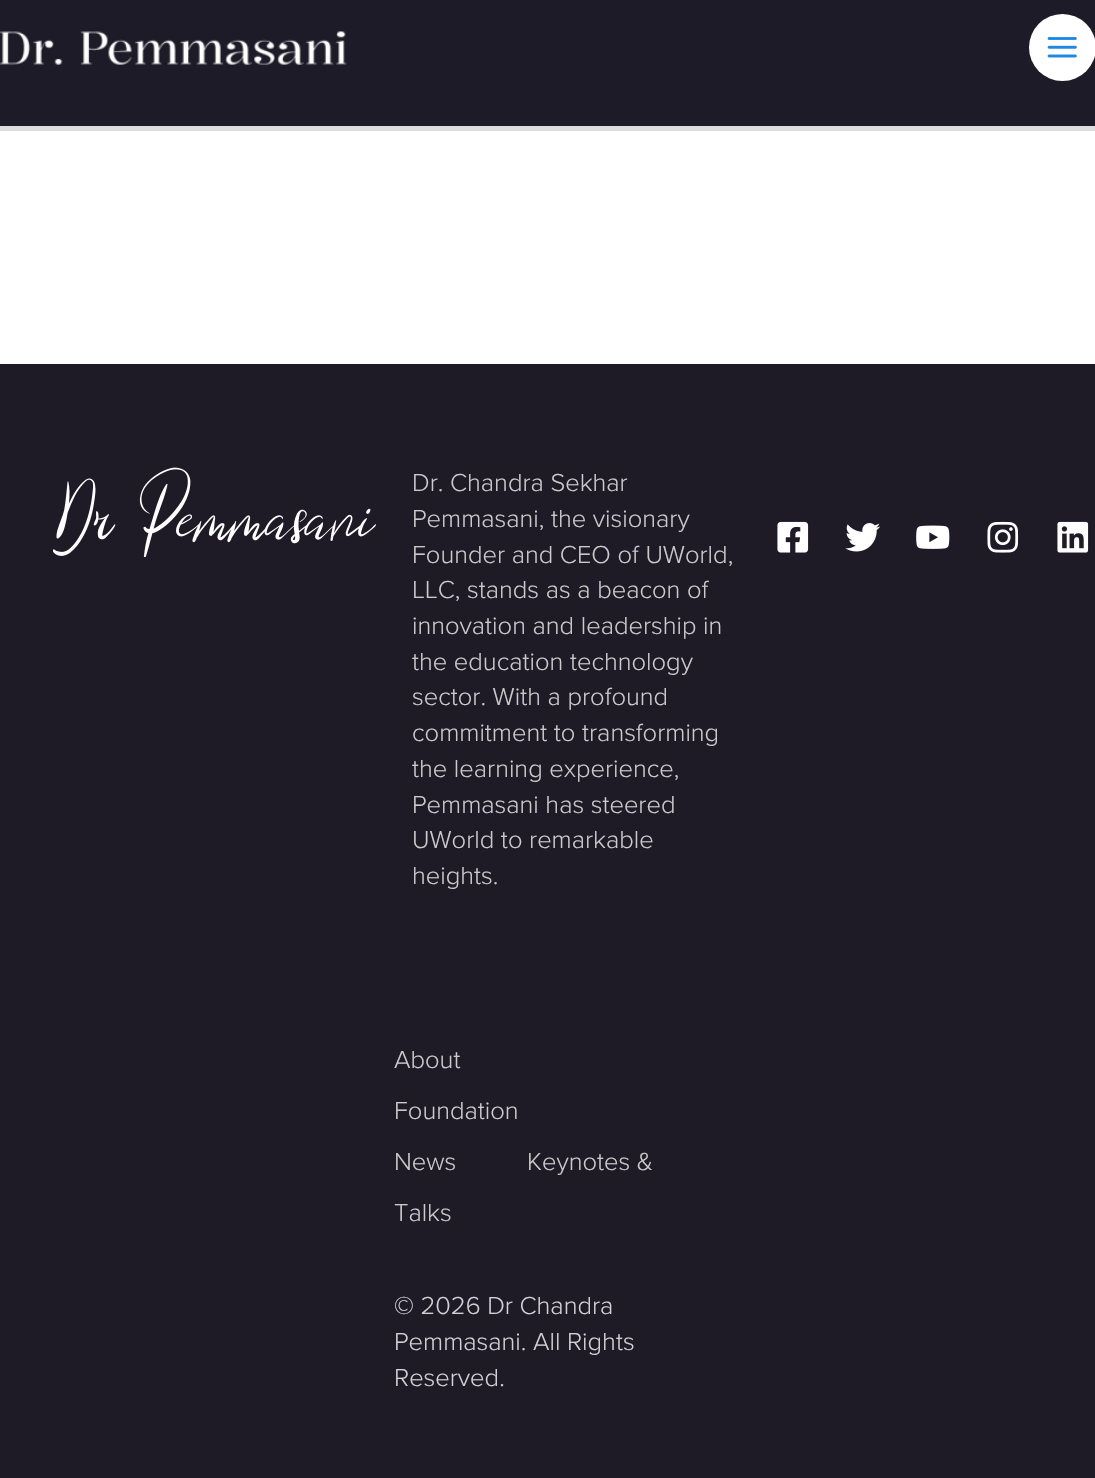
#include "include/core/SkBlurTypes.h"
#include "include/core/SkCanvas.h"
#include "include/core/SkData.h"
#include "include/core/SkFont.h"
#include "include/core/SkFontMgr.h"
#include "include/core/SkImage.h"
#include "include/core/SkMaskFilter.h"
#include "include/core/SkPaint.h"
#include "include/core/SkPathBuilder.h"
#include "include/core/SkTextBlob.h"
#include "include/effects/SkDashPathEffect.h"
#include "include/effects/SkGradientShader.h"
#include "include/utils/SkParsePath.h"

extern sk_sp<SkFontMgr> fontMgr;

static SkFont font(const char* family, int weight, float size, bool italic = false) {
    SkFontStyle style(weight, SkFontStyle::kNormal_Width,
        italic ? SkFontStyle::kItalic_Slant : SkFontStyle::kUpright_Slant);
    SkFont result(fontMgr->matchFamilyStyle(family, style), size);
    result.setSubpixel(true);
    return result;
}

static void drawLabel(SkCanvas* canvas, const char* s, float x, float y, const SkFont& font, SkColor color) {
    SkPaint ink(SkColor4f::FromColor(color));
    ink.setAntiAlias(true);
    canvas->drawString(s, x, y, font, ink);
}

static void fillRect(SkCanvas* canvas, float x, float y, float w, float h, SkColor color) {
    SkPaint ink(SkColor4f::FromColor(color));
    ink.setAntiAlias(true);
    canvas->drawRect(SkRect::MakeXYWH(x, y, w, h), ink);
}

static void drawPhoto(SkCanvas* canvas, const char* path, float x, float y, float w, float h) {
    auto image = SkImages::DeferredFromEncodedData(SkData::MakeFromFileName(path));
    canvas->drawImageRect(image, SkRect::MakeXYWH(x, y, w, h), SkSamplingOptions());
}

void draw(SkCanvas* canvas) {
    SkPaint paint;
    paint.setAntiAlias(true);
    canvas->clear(0xFFFFFFFF);
    fillRect(canvas, 0, 0, 1095, 126, 0xFF1D1B27);
    fillRect(canvas, 0, 126, 1095, 5, 0xFFDDDDDD);
    drawPhoto(canvas, "assets/img1.png", 0, 31, 347, 34);
    paint.setColor(0xFFFFFFFF);
    canvas->drawCircle(1062.5f, 47.5f, 33.5f, paint);
    drawPhoto(canvas, "assets/img2.png", 1047, 37, 30, 21);
    fillRect(canvas, 0, 364, 1095, 1114, 0xFF1E1B27);
    drawPhoto(canvas, "assets/img3.png", 53, 467, 323, 90);
    SkFont font1 = font("Proxima Nova", 300, 25.5f);
    drawLabel(canvas, "Dr. Chandra Sekhar", 412, 491, font1, 0xFFCBCBCB);
    drawLabel(canvas, "Pemmasani, the visionary", 412, 527, font1, 0xFFCBCBCB);
    drawLabel(canvas, "Founder and CEO of UWorld,", 412, 563, font1, 0xFFCBCBCB);
    drawLabel(canvas, "LLC, stands as a beacon of", 412, 598, font1, 0xFFCBCBCB);
    drawLabel(canvas, "innovation and leadership in", 412, 634, font1, 0xFFCBCBCB);
    drawLabel(canvas, "the education technology", 412, 670, font1, 0xFFCBCBCB);
    drawLabel(canvas, "sector. With a profound", 412, 705, font1, 0xFFCBCBCB);
    drawLabel(canvas, "commitment to transforming", 412, 741, font1, 0xFFCBCBCB);
    drawLabel(canvas, "the learning experience,", 412, 777, font1, 0xFFCBCBCB);
    drawLabel(canvas, "Pemmasani has steered", 412, 813, font1, 0xFFCBCBCB);
    drawLabel(canvas, "UWorld to remarkable", 412, 848, font1, 0xFFCBCBCB);
    drawLabel(canvas, "heights.", 412, 884, font1, 0xFFCBCBCB);
    drawPhoto(canvas, "assets/img4.png", 777, 521, 32, 32);
    drawPhoto(canvas, "assets/img5.png", 845, 523, 35, 29);
    drawPhoto(canvas, "assets/img6.png", 916, 525, 34, 24);
    drawPhoto(canvas, "assets/img7.png", 987, 521, 32, 32);
    drawPhoto(canvas, "assets/img8.png", 1057, 521, 32, 32);
    drawLabel(canvas, "About", 394, 1068, font1, 0xFFCBCBCB);
    drawLabel(canvas, "Foundation", 394, 1119, font1, 0xFFCBCBCB);
    drawLabel(canvas, "News", 394, 1170, font1, 0xFFCBCBCB);
    drawLabel(canvas, "Keynotes &", 527, 1170, font1, 0xFFCBCBCB);
    drawLabel(canvas, "Talks", 394, 1221, font1, 0xFFCBCBCB);
    drawLabel(canvas, "© 2026 Dr Chandra", 394, 1314, font1, 0xFFD2D1D4);
    drawLabel(canvas, "Pemmasani. All Rights", 394, 1350, font1, 0xFFD2D1D4);
    drawLabel(canvas, "Reserved.", 394, 1386, font1, 0xFFD2D1D4);
}
